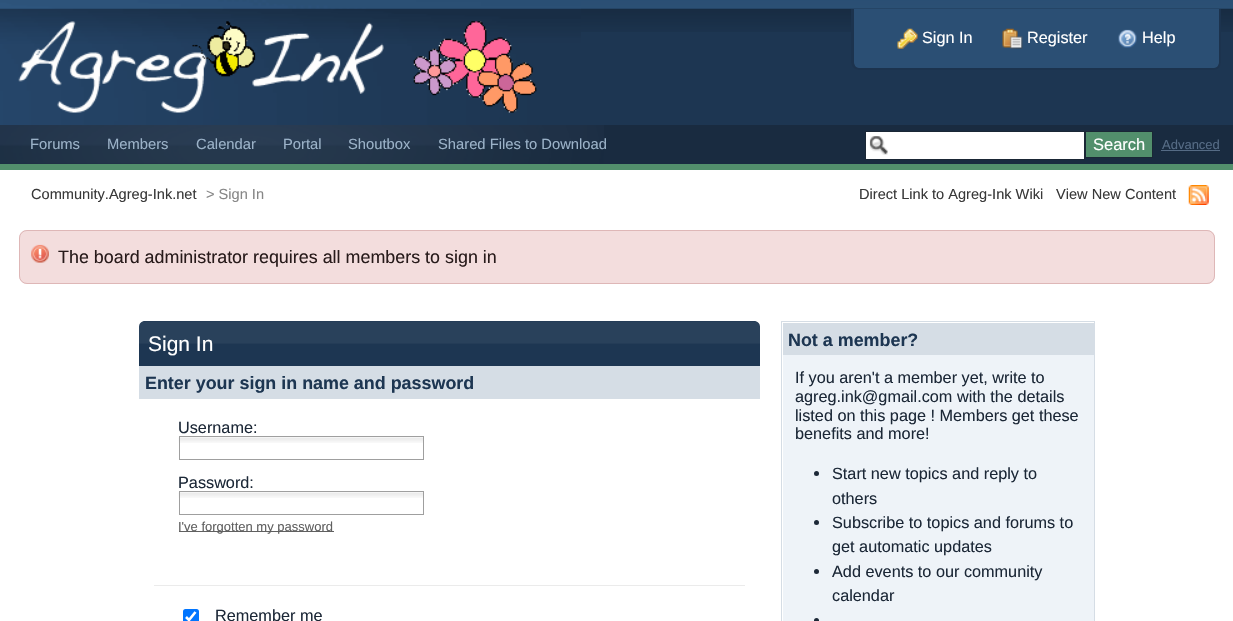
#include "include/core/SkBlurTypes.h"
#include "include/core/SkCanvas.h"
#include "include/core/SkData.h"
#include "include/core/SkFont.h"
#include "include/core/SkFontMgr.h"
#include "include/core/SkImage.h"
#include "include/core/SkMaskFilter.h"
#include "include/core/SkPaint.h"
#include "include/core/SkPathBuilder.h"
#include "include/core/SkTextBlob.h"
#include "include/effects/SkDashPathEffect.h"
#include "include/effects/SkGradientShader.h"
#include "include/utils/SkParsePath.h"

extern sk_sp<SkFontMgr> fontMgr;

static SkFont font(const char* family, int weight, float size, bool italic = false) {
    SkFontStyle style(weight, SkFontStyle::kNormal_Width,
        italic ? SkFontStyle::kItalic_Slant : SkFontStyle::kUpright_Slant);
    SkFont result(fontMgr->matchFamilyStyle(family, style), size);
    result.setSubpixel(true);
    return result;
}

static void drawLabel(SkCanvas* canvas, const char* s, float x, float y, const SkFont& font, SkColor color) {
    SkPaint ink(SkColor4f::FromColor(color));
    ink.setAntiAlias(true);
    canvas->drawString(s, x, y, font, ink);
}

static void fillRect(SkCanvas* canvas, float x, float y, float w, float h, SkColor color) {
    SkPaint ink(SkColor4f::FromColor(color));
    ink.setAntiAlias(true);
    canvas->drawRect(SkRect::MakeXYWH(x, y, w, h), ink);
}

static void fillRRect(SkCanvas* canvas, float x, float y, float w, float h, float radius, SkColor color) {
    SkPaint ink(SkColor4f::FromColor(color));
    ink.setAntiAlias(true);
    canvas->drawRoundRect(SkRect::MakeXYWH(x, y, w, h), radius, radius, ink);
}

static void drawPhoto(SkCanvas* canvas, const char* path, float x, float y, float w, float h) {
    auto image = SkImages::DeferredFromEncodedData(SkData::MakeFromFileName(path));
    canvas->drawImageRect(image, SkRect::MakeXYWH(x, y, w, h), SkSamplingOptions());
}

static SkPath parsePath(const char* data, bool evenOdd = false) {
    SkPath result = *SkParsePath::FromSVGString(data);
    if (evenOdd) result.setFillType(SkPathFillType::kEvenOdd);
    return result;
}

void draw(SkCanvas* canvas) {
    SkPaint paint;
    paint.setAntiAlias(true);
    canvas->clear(0xFFFFFFFF);
    fillRect(canvas, 581, 32, 652, 93, 0xFF1D3652);
    drawPhoto(canvas, "assets/img1.png", 581, 0, 652, 32);
    drawPhoto(canvas, "assets/img2.png", 0, 0, 581, 125);
    paint.setColor(0xFF2B4F74);
    canvas->drawPath(parsePath("M854 9H1219V63C1219 66 1217 68 1214 68H859C856 68 854 66 854 63Z"), paint);
    paint.setColor(0xFF1C334E);
    canvas->drawPath(parsePath("M851 9H1221V62C1221 67 1218 70 1214 70H859C855 70 851 67 851 62ZM854 9H1219V62C1219 65 1217 68 1214 68H859C856 68 854 65 854 62Z", true), paint);
    drawPhoto(canvas, "assets/img3.png", 897, 28, 21, 21);
    SkFont font1 = font("Liberation Sans", 400, 16.25f);
    drawLabel(canvas, "Sign In", 922, 43, font1, 0xFFFFFFFF);
    drawPhoto(canvas, "assets/img4.png", 1002, 28, 21, 21);
    drawLabel(canvas, "Register", 1027, 43, font1, 0xFFFFFFFF);
    drawPhoto(canvas, "assets/img5.png", 1118, 29, 19, 19);
    drawLabel(canvas, "Help", 1142, 43, font1, 0xFFFFFFFF);
    fillRect(canvas, 0, 125, 1233, 39, 0xFF192B40);
    drawPhoto(canvas, "assets/img6.png", 0, 125, 604, 39);
    fillRect(canvas, 0, 164, 1233, 6, 0xFF528F6C);
    SkFont font2 = font("Liberation Sans", 400, 14.75f);
    drawLabel(canvas, "Forums", 30, 149, font2, 0xFF9BB2C8);
    drawLabel(canvas, "Members", 107, 149, font2, 0xFF9BB2C8);
    drawLabel(canvas, "Calendar", 196, 149, font2, 0xFF9BB2C8);
    drawLabel(canvas, "Portal", 283, 149, font2, 0xFF9BB2C8);
    drawLabel(canvas, "Shoutbox", 348, 149, font2, 0xFF9BB2C8);
    drawLabel(canvas, "Shared Files to Download", 438, 149, font2, 0xFF9BB2C8);
    fillRect(canvas, 866, 132, 218, 27, 0xFFFFFFFF);
    drawPhoto(canvas, "assets/img7.png", 869, 136, 19, 19);
    paint.setStroke(true);
    paint.setStrokeWidth(1);
    paint.setColor(0xFF1A2735);
    canvas->drawRect(SkRect::MakeXYWH(865.5f, 131.5f, 219, 28), paint);
    paint.setStroke(false);
    paint.setColor(0xFF528F6C);
    canvas->drawRect(SkRect::MakeXYWH(1085.5f, 131.5f, 67, 26), paint);
    paint.setStroke(true);
    paint.setColor(0xFF1A2735);
    canvas->drawRect(SkRect::MakeXYWH(1085.5f, 131.5f, 67, 26), paint);
    SkFont font3 = font("Liberation Sans", 400, 16.5f);
    drawLabel(canvas, "Search", 1093, 150, font3, 0xFFFFFFFF);
    SkFont font4 = font("Liberation Sans", 400, 13);
    drawLabel(canvas, "Advanced", 1162, 149, font4, 0xFF556B85);
    fillRect(canvas, 1161, 150, 59, 1, 0xFF556B85);
    SkFont font5 = font("Liberation Sans", 400, 14.6f);
    drawLabel(canvas, "Community.Agreg-Ink.net", 31, 199, font5, 0xFF393939);
    drawLabel(canvas, "> Sign In", 206, 199, font5, 0xFF878787);
    drawLabel(canvas, "Direct Link to Agreg-Ink Wiki", 859, 199, font5, 0xFF393939);
    drawLabel(canvas, "View New Content", 1056, 199, font5, 0xFF393939);
    drawPhoto(canvas, "assets/img8.png", 1188, 185, 21, 20);
    fillRRect(canvas, 19, 230, 1196, 54, 8, 0xFFF3DDDD);
    drawPhoto(canvas, "assets/img9.png", 31, 244, 18, 19);
    paint.setColor(0xFFDEB7B7);
    canvas->drawRoundRect(SkRect::MakeXYWH(19.5f, 230.5f, 1195, 53), 7.5f, 7.5f, paint);
    SkFont font6 = font("Liberation Sans", 400, 17.9f);
    drawLabel(canvas, "The board administrator requires all members to sign in", 58, 263, font6, 0xFF281B1B);
    paint.setStroke(false);
    paint.setColor(0xFF1D3652);
    canvas->drawPath(parsePath("M145 321H754C757.5 321 760 323.5 760 327V366H139V327C139 323.5 141.5 321 145 321Z"), paint);
    drawPhoto(canvas, "assets/img10.png", 139, 321, 621, 23);
    SkFont font7 = font("Liberation Sans", 400, 21);
    drawLabel(canvas, "Sign In", 148, 351, font7, 0xFFFFFFFF);
    fillRect(canvas, 139, 366, 621, 33, 0xFFD5DDE5);
    SkFont font8 = font("Liberation Sans", 700, 17.9f);
    drawLabel(canvas, "Enter your sign in name and password", 145, 389, font8, 0xFF1D3652);
    drawLabel(canvas, "Username:", 178, 433, font1, 0xFF1C2837);
    drawPhoto(canvas, "assets/img11.png", 178, 437, 245, 6);
    paint.setStroke(true);
    paint.setColor(0xFF9F9F9F);
    canvas->drawRect(SkRect::MakeXYWH(179.5f, 436.5f, 244, 23), paint);
    drawLabel(canvas, "Password:", 178, 488, font1, 0xFF1C2837);
    drawPhoto(canvas, "assets/img12.png", 178, 492, 245, 6);
    canvas->drawRect(SkRect::MakeXYWH(179.5f, 491.5f, 244, 23), paint);
    fillRect(canvas, 179, 531, 155, 1, 0xFF606060);
    drawLabel(canvas, "I've forgotten my password", 178, 531, font4, 0xFF606060);
    fillRect(canvas, 154, 585, 591, 1, 0xFFEBEBEB);
    fillRRect(canvas, 183, 609, 16, 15, 2.5f, 0xFF0075FF);
    paint.setStrokeWidth(2.6f);
    paint.setColor(0xFFFFFFFF);
    canvas->drawPath(parsePath("M186 617L189 620L195.5 612"), paint);
    drawLabel(canvas, "Remember me", 215, 621, font1, 0xFF1C2837);
    fillRect(canvas, 783, 355, 311, 266, 0xFFEEF3F8);
    fillRect(canvas, 781, 321, 314, 1, 0xFFD5DDE5);
    fillRect(canvas, 1094, 321, 1, 300, 0xFFD5DDE5);
    fillRect(canvas, 781, 321, 1, 300, 0xFFD5DDE5);
    fillRect(canvas, 783, 323, 311, 32, 0xFFD5DDE5);
    drawLabel(canvas, "Not a member?", 788, 346, font8, 0xFF1D3652);
    drawLabel(canvas, "If you aren't a member yet, write to", 795, 383, font1, 0xFF1C2837);
    drawLabel(canvas, "agreg.ink@gmail.com with the details", 795, 402, font1, 0xFF1C2837);
    drawLabel(canvas, "listed on this page ! Members get these", 795, 421, font1, 0xFF1C2837);
    drawLabel(canvas, "benefits and more!", 795, 439, font1, 0xFF1C2837);
    paint.setStroke(false);
    paint.setColor(0xFF1C2837);
    canvas->drawCircle(816.5f, 473.5f, 2.5f, paint);
    drawLabel(canvas, "Start new topics and reply to", 832, 479, font1, 0xFF1C2837);
    drawLabel(canvas, "others", 832, 504, font1, 0xFF1C2837);
    canvas->drawCircle(816.5f, 522.5f, 2.5f, paint);
    drawLabel(canvas, "Subscribe to topics and forums to", 832, 528, font1, 0xFF1C2837);
    drawLabel(canvas, "get automatic updates", 832, 552, font1, 0xFF1C2837);
    canvas->drawCircle(816.5f, 571.5f, 2.5f, paint);
    drawLabel(canvas, "Add events to our community", 832, 577, font1, 0xFF1C2837);
    drawLabel(canvas, "calendar", 832, 601, font1, 0xFF1C2837);
    canvas->drawCircle(816.5f, 620.5f, 2.5f, paint);
}
